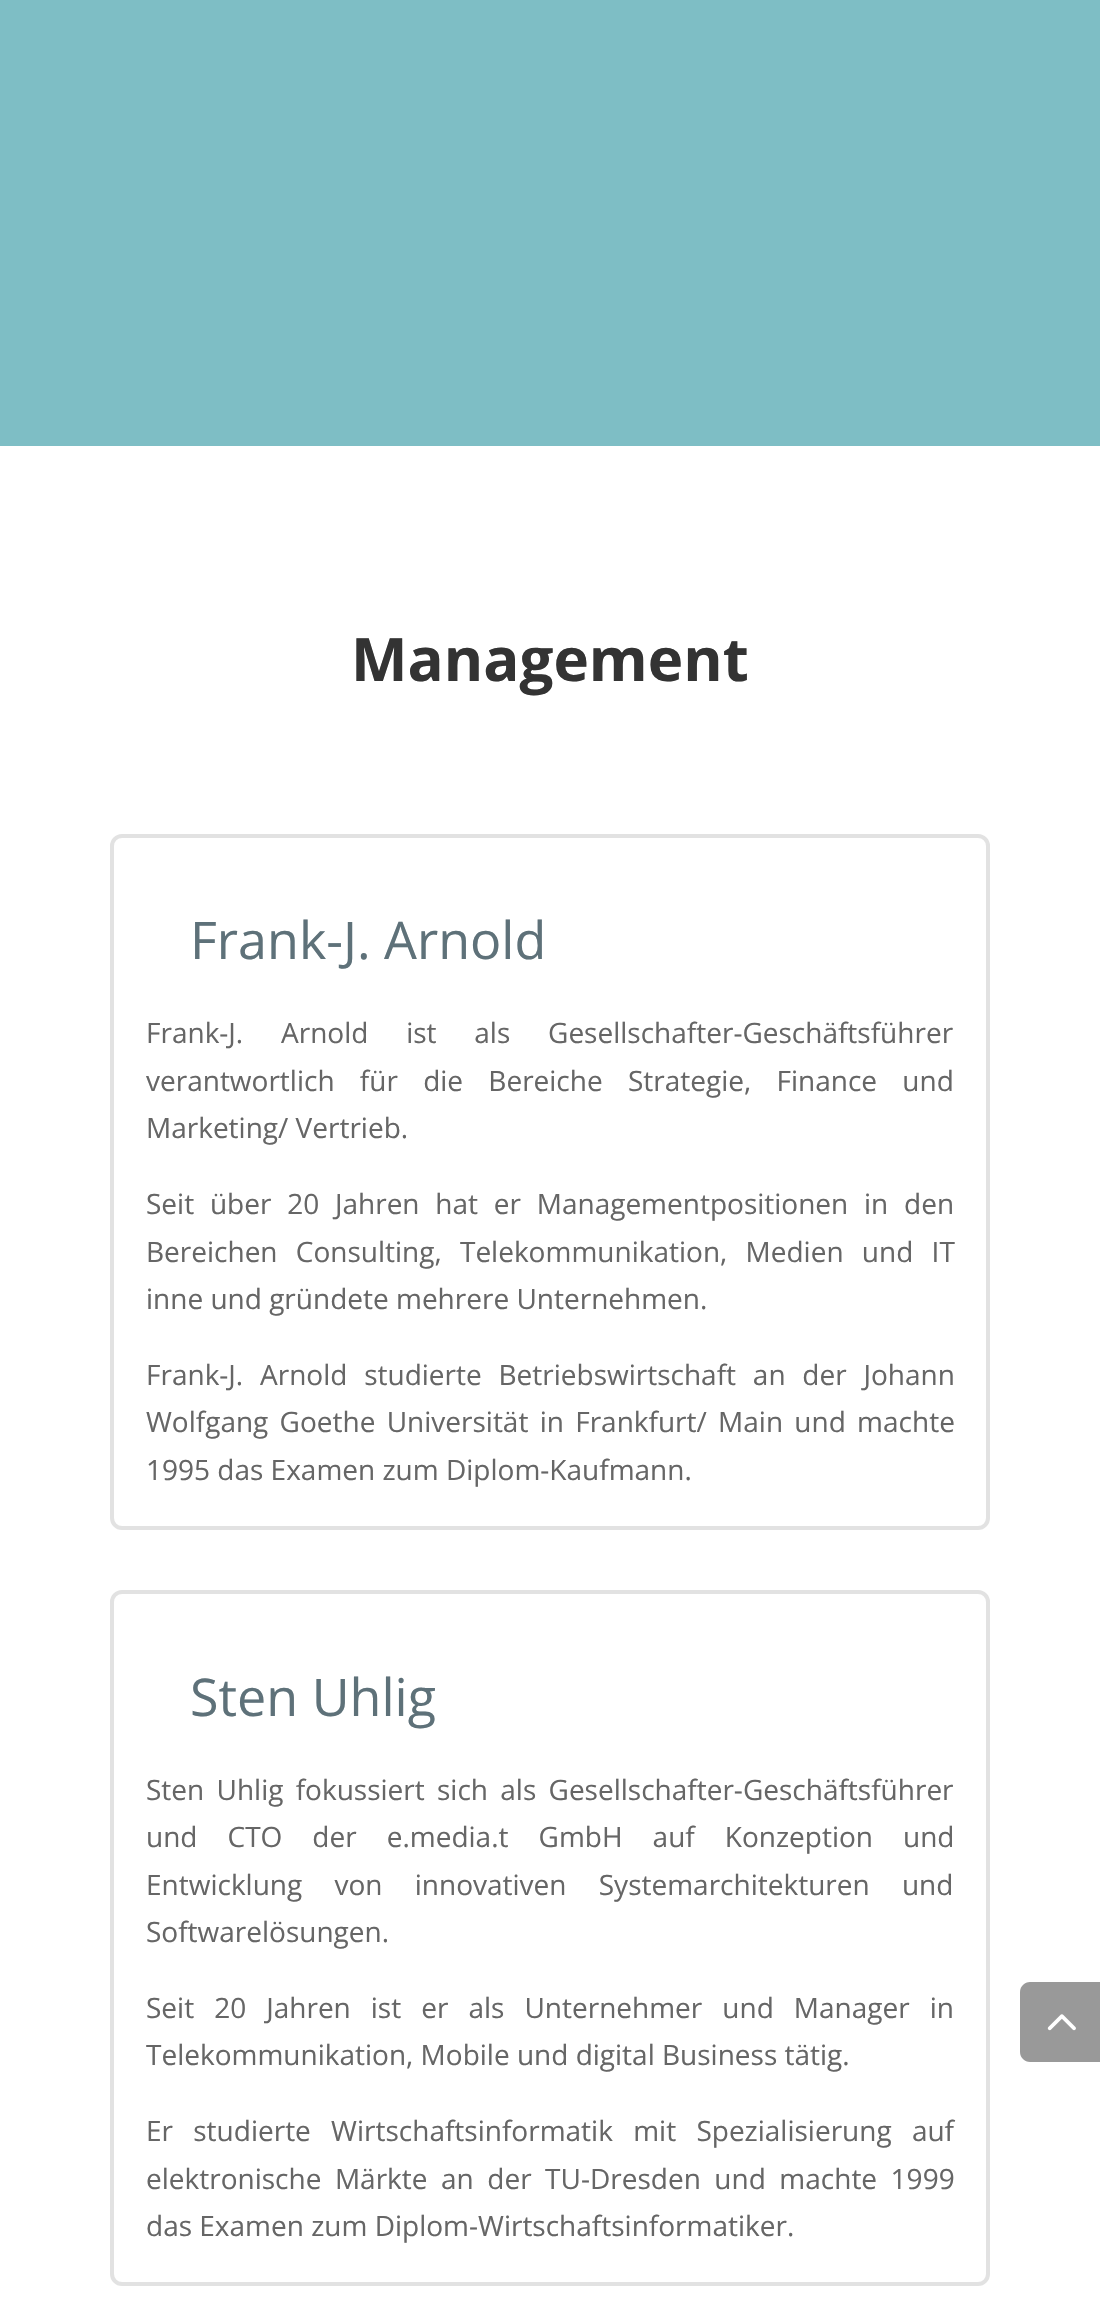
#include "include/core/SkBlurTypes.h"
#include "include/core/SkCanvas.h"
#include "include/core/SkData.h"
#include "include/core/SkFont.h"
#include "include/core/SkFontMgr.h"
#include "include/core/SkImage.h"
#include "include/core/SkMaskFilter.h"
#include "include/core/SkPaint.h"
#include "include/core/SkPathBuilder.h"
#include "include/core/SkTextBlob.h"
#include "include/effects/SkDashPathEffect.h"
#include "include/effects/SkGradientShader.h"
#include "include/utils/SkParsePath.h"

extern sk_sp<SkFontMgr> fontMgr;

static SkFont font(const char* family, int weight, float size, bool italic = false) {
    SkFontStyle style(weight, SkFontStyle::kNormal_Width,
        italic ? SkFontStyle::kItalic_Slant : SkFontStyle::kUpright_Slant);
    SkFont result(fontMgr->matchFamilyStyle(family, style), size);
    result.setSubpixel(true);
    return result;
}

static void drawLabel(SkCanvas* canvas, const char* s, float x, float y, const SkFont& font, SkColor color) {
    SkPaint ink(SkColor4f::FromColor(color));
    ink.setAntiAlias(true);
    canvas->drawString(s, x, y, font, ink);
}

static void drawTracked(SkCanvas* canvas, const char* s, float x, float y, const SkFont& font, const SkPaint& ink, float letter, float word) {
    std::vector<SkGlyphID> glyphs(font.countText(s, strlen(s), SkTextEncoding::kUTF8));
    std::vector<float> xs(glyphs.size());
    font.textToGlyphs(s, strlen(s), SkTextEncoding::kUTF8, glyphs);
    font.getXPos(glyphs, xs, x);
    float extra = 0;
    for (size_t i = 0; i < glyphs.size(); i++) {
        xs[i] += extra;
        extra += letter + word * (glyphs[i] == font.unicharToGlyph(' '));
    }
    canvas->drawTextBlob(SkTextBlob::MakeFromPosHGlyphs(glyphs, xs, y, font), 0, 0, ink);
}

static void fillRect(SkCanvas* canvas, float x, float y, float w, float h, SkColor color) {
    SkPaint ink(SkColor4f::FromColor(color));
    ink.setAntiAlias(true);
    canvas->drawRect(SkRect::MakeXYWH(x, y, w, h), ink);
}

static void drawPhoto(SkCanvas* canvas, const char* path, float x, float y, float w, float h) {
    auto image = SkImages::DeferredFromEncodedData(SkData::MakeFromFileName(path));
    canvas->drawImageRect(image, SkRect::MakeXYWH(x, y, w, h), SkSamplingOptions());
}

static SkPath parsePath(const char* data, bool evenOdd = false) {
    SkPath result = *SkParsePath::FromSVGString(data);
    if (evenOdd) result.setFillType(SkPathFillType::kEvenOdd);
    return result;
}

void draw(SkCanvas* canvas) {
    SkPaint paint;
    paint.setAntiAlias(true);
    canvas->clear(0xFFFFFFFF);
    fillRect(canvas, 0, 0, 1100, 446, 0xFF7EBEC5);
    SkFont font1 = font("Open Sans", 700, 60);
    drawLabel(canvas, "Management", 351, 681, font1, 0xFF333333);
    paint.setStroke(true);
    paint.setStrokeWidth(4);
    paint.setColor(0xFFE2E2E2);
    canvas->drawRoundRect(SkRect::MakeXYWH(112, 836, 876, 692), 10, 10, paint);
    SkFont font2 = font("Open Sans", 400, 52);
    drawLabel(canvas, "Frank-J. Arnold", 190, 959, font2, 0xFF5E7179);
    SkFont font3 = font("Open Sans", 400, 28);
    paint.setStroke(false);
    paint.setColor(0xFF666666);
    drawTracked(canvas, "Frank-J. Arnold ist als Gesellschafter-Geschäftsführer", 146, 1043, font3, paint, 0, 30.5f);
    drawTracked(canvas, "verantwortlich für die Bereiche Strategie, Finance und", 146, 1091, font3, paint, 0, 18);
    drawLabel(canvas, "Marketing/ Vertrieb.", 146, 1138, font3, 0xFF666666);
    drawTracked(canvas, "Seit über 20 Jahren hat er Managementpositionen in den", 146, 1214, font3, paint, 0, 8.5f);
    drawTracked(canvas, "Bereichen Consulting, Telekommunikation, Medien und IT", 146, 1262, font3, paint, 0, 11);
    drawLabel(canvas, "inne und gründete mehrere Unternehmen.", 146, 1309, font3, 0xFF666666);
    drawTracked(canvas, "Frank-J. Arnold studierte Betriebswirtschaft an der Johann", 146, 1385, font3, paint, 0, 9.5f);
    drawTracked(canvas, "Wolfgang Goethe Universität in Frankfurt/ Main und machte", 146, 1432, font3, paint, 0, 4);
    drawLabel(canvas, "1995 das Examen zum Diplom-Kaufmann.", 146, 1480, font3, 0xFF666666);
    paint.setStroke(true);
    paint.setColor(0xFFE2E2E2);
    canvas->drawRoundRect(SkRect::MakeXYWH(112, 1592, 876, 692), 10, 10, paint);
    drawLabel(canvas, "Sten Uhlig", 190, 1716, font2, 0xFF5E7179);
    paint.setStroke(false);
    paint.setColor(0xFF666666);
    drawTracked(canvas, "Sten Uhlig fokussiert sich als Gesellschafter-Geschäftsführer", 146, 1800, font3, paint, 0, 5);
    drawTracked(canvas, "und CTO der e.media.t GmbH auf Konzeption und", 146, 1847, font3, paint, 0, 22.75f);
    drawTracked(canvas, "Entwicklung von innovativen Systemarchitekturen und", 146, 1895, font3, paint, 0, 25);
    drawLabel(canvas, "Softwarelösungen.", 146, 1942, font3, 0xFF666666);
    drawTracked(canvas, "Seit 20 Jahren ist er als Unternehmer und Manager in", 146, 2018, font3, paint, 0, 12.75f);
    drawLabel(canvas, "Telekommunikation, Mobile und digital Business tätig.", 146, 2065, font3, 0xFF666666);
    drawTracked(canvas, "Er studierte Wirtschaftsinformatik mit Spezialisierung auf", 146, 2141, font3, paint, 0, 13);
    drawTracked(canvas, "elektronische Märkte an der TU-Dresden und machte 1999", 146, 2189, font3, paint, 0, 6.25f);
    drawLabel(canvas, "das Examen zum Diplom-Wirtschaftsinformatiker.", 146, 2236, font3, 0xFF666666);
    paint.setColor(0xFF999999);
    canvas->drawPath(parsePath("M1030 1982H1100V2062H1030C1024.5 2062 1020 2057.5 1020 2052V1992C1020 1986.5 1024.5 1982 1030 1982Z"), paint);
    drawPhoto(canvas, "assets/img1.png", 1047, 2014, 29, 17);
}
